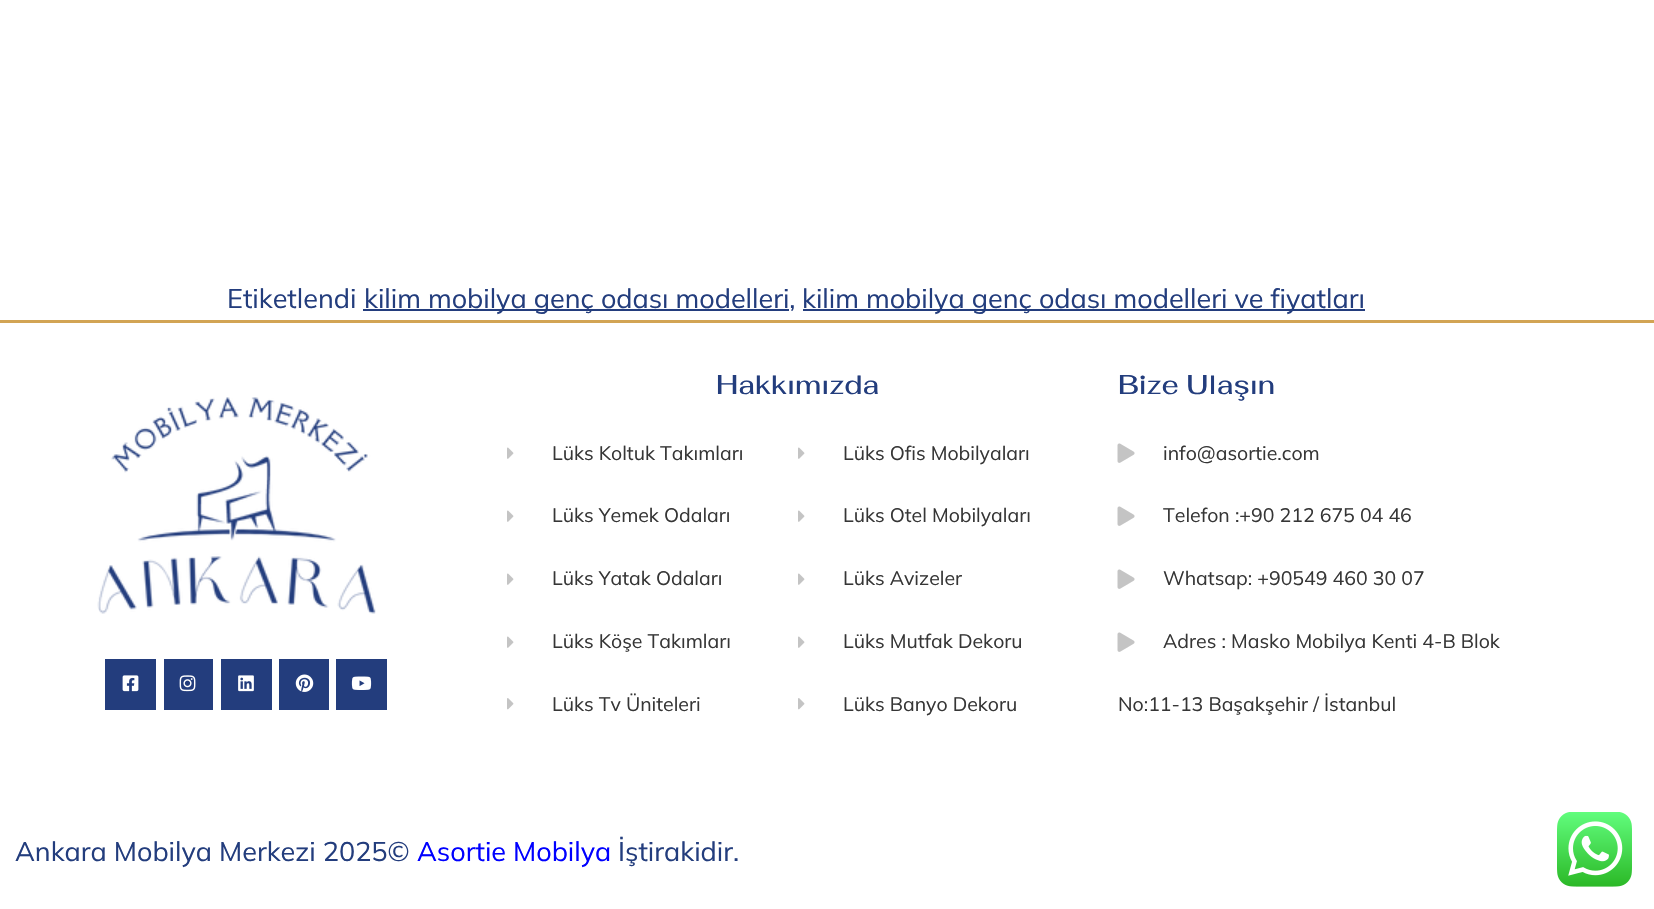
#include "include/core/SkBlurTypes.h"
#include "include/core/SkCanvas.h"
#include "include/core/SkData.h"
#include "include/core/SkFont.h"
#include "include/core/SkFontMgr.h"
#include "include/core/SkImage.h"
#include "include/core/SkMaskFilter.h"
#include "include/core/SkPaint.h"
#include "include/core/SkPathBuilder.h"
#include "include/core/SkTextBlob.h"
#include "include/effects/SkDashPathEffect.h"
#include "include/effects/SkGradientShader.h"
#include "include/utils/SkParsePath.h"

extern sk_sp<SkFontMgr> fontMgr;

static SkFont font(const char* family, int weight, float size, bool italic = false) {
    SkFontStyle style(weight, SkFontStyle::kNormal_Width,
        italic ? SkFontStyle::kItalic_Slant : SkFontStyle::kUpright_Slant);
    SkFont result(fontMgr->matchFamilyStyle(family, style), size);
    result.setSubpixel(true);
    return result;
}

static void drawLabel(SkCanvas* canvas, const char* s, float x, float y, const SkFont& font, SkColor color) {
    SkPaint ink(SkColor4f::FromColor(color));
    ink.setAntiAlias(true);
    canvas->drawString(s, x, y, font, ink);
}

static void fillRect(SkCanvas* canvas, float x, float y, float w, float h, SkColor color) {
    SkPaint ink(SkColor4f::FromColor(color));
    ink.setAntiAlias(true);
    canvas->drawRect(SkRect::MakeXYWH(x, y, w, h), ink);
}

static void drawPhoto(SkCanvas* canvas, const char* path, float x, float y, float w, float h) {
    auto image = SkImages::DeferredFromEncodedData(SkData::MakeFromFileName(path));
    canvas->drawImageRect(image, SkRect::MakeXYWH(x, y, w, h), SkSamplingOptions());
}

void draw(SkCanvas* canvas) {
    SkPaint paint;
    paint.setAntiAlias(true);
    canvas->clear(0xFFFFFFFF);
    SkFont font1 = font("Mulish", 400, 27);
    drawLabel(canvas, "Etiketlendi", 227, 308, font1, 0xFF233D7D);
    fillRect(canvas, 363, 309, 426, 2, 0xFF233D7D);
    drawLabel(canvas, "kilim mobilya genç odası modelleri,", 364, 308, font1, 0xFF233D7D);
    fillRect(canvas, 803, 309, 562, 2, 0xFF233D7D);
    drawLabel(canvas, "kilim mobilya genç odası modelleri ve fiyatları", 802, 308, font1, 0xFF233D7D);
    fillRect(canvas, 0, 320, 1654, 3, 0xFFD2A454);
    drawPhoto(canvas, "assets/img1.png", 97, 397, 279, 217);
    fillRect(canvas, 105, 659, 51, 51, 0xFF233D7D);
    drawPhoto(canvas, "assets/img2.png", 122, 675, 17, 17);
    fillRect(canvas, 164, 659, 49, 51, 0xFF233D7D);
    drawPhoto(canvas, "assets/img3.png", 179, 675, 17, 17);
    fillRect(canvas, 221, 659, 51, 51, 0xFF233D7D);
    drawPhoto(canvas, "assets/img4.png", 238, 675, 16, 17);
    fillRect(canvas, 279, 659, 50, 51, 0xFF233D7D);
    drawPhoto(canvas, "assets/img5.png", 295, 674, 19, 18);
    fillRect(canvas, 336, 659, 51, 51, 0xFF233D7D);
    drawPhoto(canvas, "assets/img6.png", 351, 676, 21, 14);
    SkFont font2 = font("Fahkwang", 500, 27);
    drawLabel(canvas, "Hakkımızda", 716, 394, font2, 0xFF233D7D);
    drawPhoto(canvas, "assets/img7.png", 507, 447, 7, 12);
    SkFont font3 = font("Mulish", 400, 19.5f);
    drawLabel(canvas, "Lüks Koltuk Takımları", 552, 460, font3, 0xFF363636);
    drawPhoto(canvas, "assets/img7.png", 507, 510, 7, 12);
    drawLabel(canvas, "Lüks Yemek Odaları", 552, 522, font3, 0xFF363636);
    drawPhoto(canvas, "assets/img7.png", 507, 573, 7, 12);
    drawLabel(canvas, "Lüks Yatak Odaları", 552, 585, font3, 0xFF363636);
    drawPhoto(canvas, "assets/img7.png", 507, 636, 7, 12);
    drawLabel(canvas, "Lüks Köşe Takımları", 552, 648, font3, 0xFF363636);
    drawPhoto(canvas, "assets/img8.png", 507, 698, 7, 12);
    drawLabel(canvas, "Lüks Tv Üniteleri", 552, 711, font3, 0xFF363636);
    drawPhoto(canvas, "assets/img7.png", 798, 447, 7, 12);
    drawLabel(canvas, "Lüks Ofis Mobilyaları", 843, 460, font3, 0xFF363636);
    drawPhoto(canvas, "assets/img7.png", 798, 510, 7, 12);
    drawLabel(canvas, "Lüks Otel Mobilyaları", 843, 522, font3, 0xFF363636);
    drawPhoto(canvas, "assets/img7.png", 798, 573, 7, 12);
    drawLabel(canvas, "Lüks Avizeler", 843, 585, font3, 0xFF363636);
    drawPhoto(canvas, "assets/img7.png", 798, 636, 7, 12);
    drawLabel(canvas, "Lüks Mutfak Dekoru", 843, 648, font3, 0xFF363636);
    drawPhoto(canvas, "assets/img8.png", 798, 698, 7, 12);
    drawLabel(canvas, "Lüks Banyo Dekoru", 843, 711, font3, 0xFF363636);
    drawLabel(canvas, "Bize Ulaşın", 1118, 394, font2, 0xFF233D7D);
    drawPhoto(canvas, "assets/img9.png", 1117, 443, 18, 20);
    drawLabel(canvas, "info@asortie.com", 1163, 460, font3, 0xFF363636);
    drawPhoto(canvas, "assets/img9.png", 1117, 506, 18, 20);
    drawLabel(canvas, "Telefon :+90 212 675 04 46", 1163, 522, font3, 0xFF363636);
    drawPhoto(canvas, "assets/img9.png", 1117, 569, 18, 20);
    drawLabel(canvas, "Whatsap: +90549 460 30 07", 1163, 585, font3, 0xFF363636);
    drawPhoto(canvas, "assets/img9.png", 1117, 632, 18, 20);
    drawLabel(canvas, "Adres : Masko Mobilya Kenti 4-B Blok", 1163, 648, font3, 0xFF363636);
    drawLabel(canvas, "No:11-13 Başakşehir / İstanbul", 1118, 711, font3, 0xFF363636);
    drawLabel(canvas, "Ankara Mobilya Merkezi 2025©", 15, 861, font1, 0xFF233D7D);
    drawLabel(canvas, "Asortie Mobilya", 417, 861, font1, 0xFF0000FF);
    drawLabel(canvas, "İştirakidir.", 618, 861, font1, 0xFF233D7D);
    drawPhoto(canvas, "assets/img10.png", 1557, 812, 75, 75);
}
